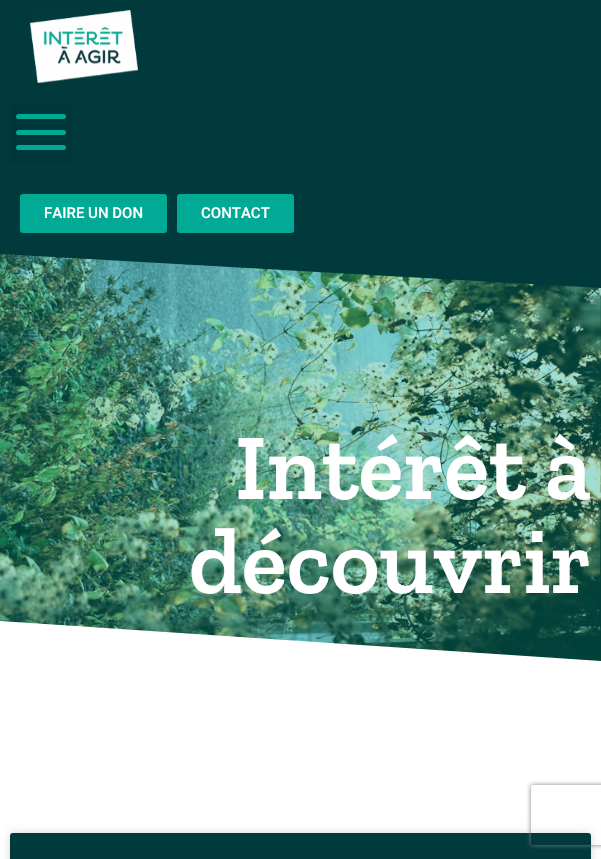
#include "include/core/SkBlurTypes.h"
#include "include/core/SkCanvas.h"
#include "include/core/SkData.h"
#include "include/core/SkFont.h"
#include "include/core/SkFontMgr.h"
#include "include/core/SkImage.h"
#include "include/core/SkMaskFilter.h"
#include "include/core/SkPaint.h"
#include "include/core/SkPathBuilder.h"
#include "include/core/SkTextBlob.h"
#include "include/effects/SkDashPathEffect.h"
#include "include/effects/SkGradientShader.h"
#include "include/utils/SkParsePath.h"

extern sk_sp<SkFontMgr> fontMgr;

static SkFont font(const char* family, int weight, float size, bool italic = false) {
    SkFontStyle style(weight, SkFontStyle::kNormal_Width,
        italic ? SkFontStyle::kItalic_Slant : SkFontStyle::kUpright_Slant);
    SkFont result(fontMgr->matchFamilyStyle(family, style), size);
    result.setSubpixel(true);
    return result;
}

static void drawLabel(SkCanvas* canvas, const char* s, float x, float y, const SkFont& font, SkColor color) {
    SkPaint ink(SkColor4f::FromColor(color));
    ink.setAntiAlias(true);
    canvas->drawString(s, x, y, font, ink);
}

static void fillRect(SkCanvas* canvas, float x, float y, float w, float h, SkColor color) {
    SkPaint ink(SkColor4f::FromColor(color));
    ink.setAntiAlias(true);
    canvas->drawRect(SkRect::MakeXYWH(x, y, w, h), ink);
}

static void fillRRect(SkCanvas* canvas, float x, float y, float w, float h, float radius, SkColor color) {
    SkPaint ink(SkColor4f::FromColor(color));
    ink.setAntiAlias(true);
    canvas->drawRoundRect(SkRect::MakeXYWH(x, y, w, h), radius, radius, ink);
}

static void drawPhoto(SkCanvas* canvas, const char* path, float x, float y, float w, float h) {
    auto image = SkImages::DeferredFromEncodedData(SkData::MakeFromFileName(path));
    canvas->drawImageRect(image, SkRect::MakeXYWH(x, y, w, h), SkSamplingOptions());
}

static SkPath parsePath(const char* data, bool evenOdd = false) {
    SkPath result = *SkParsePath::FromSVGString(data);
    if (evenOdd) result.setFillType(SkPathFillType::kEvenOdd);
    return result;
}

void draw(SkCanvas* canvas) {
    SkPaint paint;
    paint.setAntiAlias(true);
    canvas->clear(0xFFFFFFFF);
    fillRect(canvas, 0, 0, 601, 252, 0xFF003A3D);
    drawPhoto(canvas, "assets/img1.png", 30, 10, 108, 73);
    fillRRect(canvas, 10, 103, 61, 61, 3, 0xFF00373A);
    fillRRect(canvas, 16, 130, 50, 5, 2.5f, 0xFF00AA95);
    fillRRect(canvas, 16, 114, 50, 5, 2.5f, 0xFF00AA95);
    fillRRect(canvas, 16, 145, 50, 5, 2.5f, 0xFF00AA95);
    fillRRect(canvas, 20, 194, 147, 39, 3, 0xFF00AA95);
    SkFont font1 = font("Roboto", 500, 15);
    drawLabel(canvas, "FAIRE UN DON", 44, 218, font1, 0xFFFFFFFF);
    fillRRect(canvas, 177, 194, 117, 39, 3, 0xFF00AA95);
    drawLabel(canvas, "CONTACT", 201, 218, font1, 0xFFFFFFFF);
    drawPhoto(canvas, "assets/img2.png", 0, 254, 601, 407);
    paint.setColor(0xFF003A3D);
    canvas->drawPath(parsePath("M0 254V252H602V288Z"), paint);
    SkFont font2 = font("Zilla Slab", 600, 94);
    drawLabel(canvas, "Intérêt à", 235, 499, font2, 0xFFFFFFFF);
    drawLabel(canvas, "découvrir", 189, 593, font2, 0xFFFFFFFF);
    paint.setColor(0xFFFFFFFF);
    canvas->drawPath(parsePath("M601 661V664H-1V621Z"), paint);
    paint.setColor(0x26000000);
    paint.setMaskFilter(SkMaskFilter::MakeBlur(kNormal_SkBlurStyle, 5));
    canvas->drawRoundRect(SkRect::MakeXYWH(10, 833, 581, 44), 3, 3, paint);
    paint.setMaskFilter(nullptr);
    fillRRect(canvas, 10, 833, 581, 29, 3, 0xFF003A3D);
    canvas->save();
    canvas->clipPath(parsePath("M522 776H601V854H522ZM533 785H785C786 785 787 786 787 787V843C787 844 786 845 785 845H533C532 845 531 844 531 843V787C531 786 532 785 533 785Z", true), true);
    paint.setColor(0xFF808080);
    paint.setMaskFilter(SkMaskFilter::MakeBlur(kNormal_SkBlurStyle, 2.5f));
    canvas->drawRoundRect(SkRect::MakeXYWH(531, 785, 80, 60), 2, 2, paint);
    paint.setMaskFilter(nullptr);
    canvas->restore();
}
